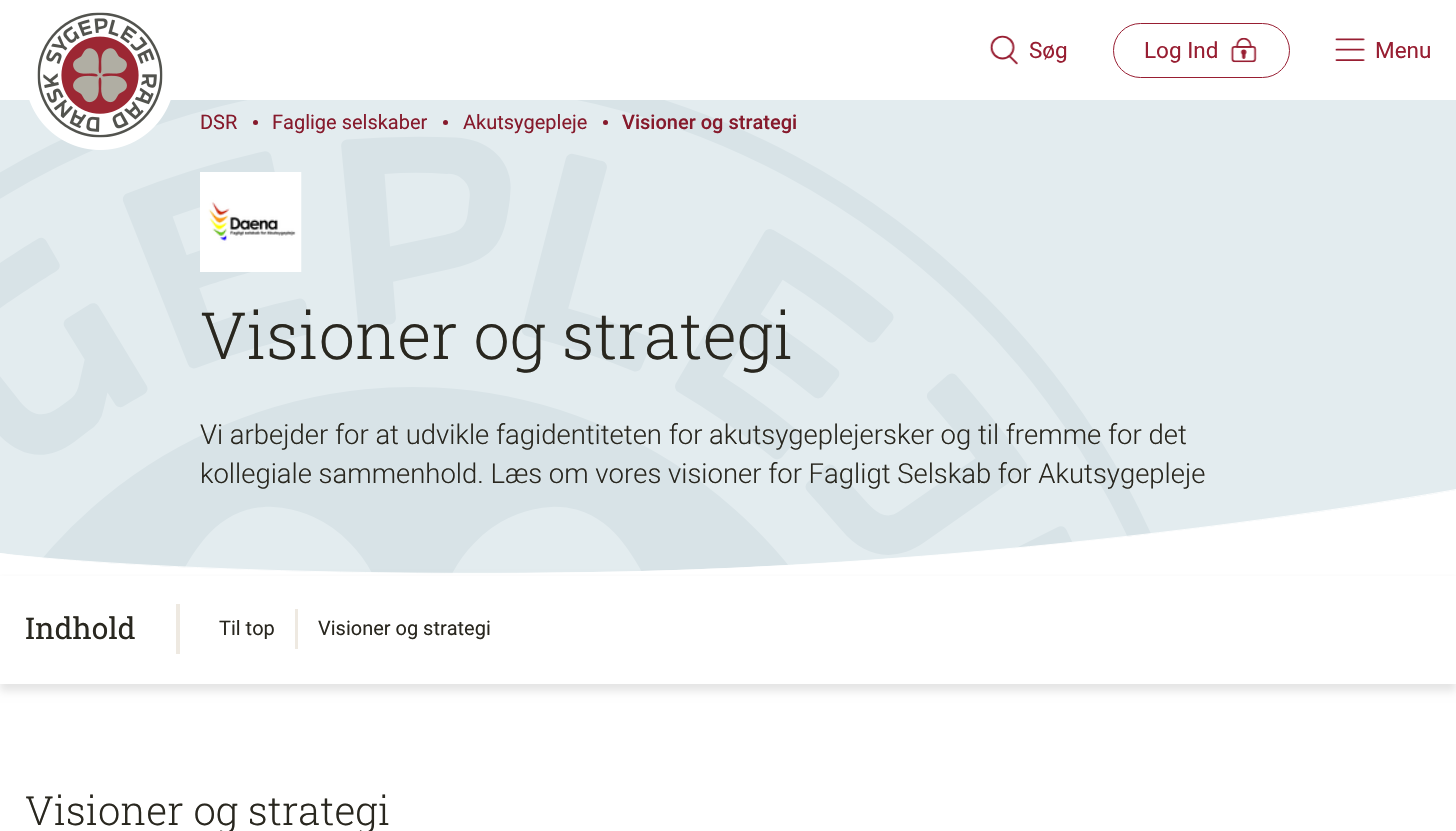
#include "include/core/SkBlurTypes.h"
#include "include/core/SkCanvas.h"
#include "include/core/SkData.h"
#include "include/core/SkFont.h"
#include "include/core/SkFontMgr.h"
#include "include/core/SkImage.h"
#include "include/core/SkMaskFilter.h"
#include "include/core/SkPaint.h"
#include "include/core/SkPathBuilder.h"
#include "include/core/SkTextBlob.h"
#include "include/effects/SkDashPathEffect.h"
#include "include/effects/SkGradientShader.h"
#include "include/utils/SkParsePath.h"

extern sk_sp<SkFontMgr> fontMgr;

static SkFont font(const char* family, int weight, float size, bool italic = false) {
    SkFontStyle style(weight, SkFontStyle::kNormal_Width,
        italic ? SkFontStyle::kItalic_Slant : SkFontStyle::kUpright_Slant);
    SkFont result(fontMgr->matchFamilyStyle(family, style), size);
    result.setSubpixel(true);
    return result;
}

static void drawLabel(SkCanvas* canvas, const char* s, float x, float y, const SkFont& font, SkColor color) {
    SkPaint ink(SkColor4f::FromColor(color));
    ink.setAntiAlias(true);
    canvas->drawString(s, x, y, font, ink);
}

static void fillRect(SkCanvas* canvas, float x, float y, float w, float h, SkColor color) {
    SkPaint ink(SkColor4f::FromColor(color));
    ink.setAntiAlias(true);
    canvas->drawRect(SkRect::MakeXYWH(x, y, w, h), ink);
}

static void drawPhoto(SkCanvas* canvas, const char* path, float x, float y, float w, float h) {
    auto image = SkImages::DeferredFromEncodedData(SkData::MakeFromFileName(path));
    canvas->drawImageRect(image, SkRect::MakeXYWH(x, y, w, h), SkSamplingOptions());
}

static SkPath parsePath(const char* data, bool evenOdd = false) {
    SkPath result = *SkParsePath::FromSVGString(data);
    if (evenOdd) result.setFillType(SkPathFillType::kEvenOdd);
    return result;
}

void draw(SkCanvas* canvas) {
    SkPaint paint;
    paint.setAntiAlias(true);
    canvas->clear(0xFFFFFFFF);
    fillRect(canvas, 0, 100, 1456, 474, 0xFFE3ECEF);
    drawPhoto(canvas, "assets/img5.png", 0, 100, 1151, 474);
    drawPhoto(canvas, "assets/img1.png", 29, 12, 142, 138);
    drawPhoto(canvas, "assets/img2.png", 989, 35, 29, 30);
    SkFont font1 = font("Roboto", 400, 22.5f);
    drawLabel(canvas, "Søg", 1029, 58, font1, 0xFF981E32);
    paint.setStroke(true);
    paint.setStrokeWidth(1);
    paint.setColor(0xFF981E32);
    canvas->drawRoundRect(SkRect::MakeXYWH(1113.5f, 23.5f, 176, 54), 27, 27, paint);
    drawLabel(canvas, "Log Ind", 1144, 58, font1, 0xFF981E32);
    drawPhoto(canvas, "assets/img3.png", 1230, 37, 27, 26);
    drawPhoto(canvas, "assets/img4.png", 1335, 38, 30, 23);
    drawLabel(canvas, "Menu", 1375, 58, font1, 0xFF981E32);
    SkFont font2 = font("Roboto", 400, 20);
    drawLabel(canvas, "DSR", 200, 129, font2, 0xFF861A2C);
    paint.setStroke(false);
    paint.setColor(0xFF861A2C);
    canvas->drawCircle(255.5f, 122.5f, 2.5f, paint);
    drawLabel(canvas, "Faglige selskaber", 272, 129, font2, 0xFF861A2C);
    canvas->drawCircle(445.5f, 122.5f, 2.5f, paint);
    drawLabel(canvas, "Akutsygepleje", 463, 129, font2, 0xFF861A2C);
    canvas->drawCircle(605.5f, 122.5f, 2.5f, paint);
    SkFont font3 = font("Roboto", 500, 20);
    drawLabel(canvas, "Visioner og strategi", 622, 129, font3, 0xFF861A2C);
    drawPhoto(canvas, "assets/img6.png", 200, 172, 102, 100);
    SkFont font4 = font("Roboto Slab", 300, 65);
    drawLabel(canvas, "Visioner og strategi", 200, 359, font4, 0xFF29271F);
    SkFont font5 = font("Roboto", 300, 27.5f);
    drawLabel(canvas, "Vi arbejder for at udvikle fagidentiteten for akutsygeplejersker og til fremme for det", 200, 444, font5, 0xFF29271F);
    drawLabel(canvas, "kollegiale sammenhold. Læs om vores visioner for Fagligt Selskab for Akutsygepleje", 200, 483, font5, 0xFF29271F);
    paint.setColor(0x1A000000);
    paint.setMaskFilter(SkMaskFilter::MakeBlur(kNormal_SkBlurStyle, 4));
    canvas->drawRect(SkRect::MakeXYWH(0, 581, 1456, 110), paint);
    paint.setMaskFilter(nullptr);
    fillRect(canvas, 0, 576, 1456, 108, 0xFFFFFFFF);
    canvas->save();
    canvas->clipRect(SkRect::MakeXYWH(0, 489, 1456, 85));
    paint.setColor(0xFFFFFFFF);
    canvas->drawPath(parsePath("M592 572C259 578 45 560 0 553V575H1456V490C1306 517 952 567 592 572Z"), paint);
    paint.setStroke(true);
    paint.setStrokeWidth(0.9f);
    canvas->drawPath(parsePath("M592.5 572.5C258.5 577.5 44.5 559.5 0 553.5V575H1456V489.5C1306 516.5 951.5 567 592.5 572.5Z"), paint);
    canvas->restore();
    SkFont font6 = font("Roboto Slab", 400, 30);
    drawLabel(canvas, "Indhold", 25, 639, font6, 0xFF29271F);
    fillRect(canvas, 176, 604, 4, 50, 0xFFEEE9E1);
    drawLabel(canvas, "Til top", 219, 635, font2, 0xFF29271F);
    fillRect(canvas, 295, 609, 3, 40, 0xFFEEE9E1);
    drawLabel(canvas, "Visioner og strategi", 318, 635, font2, 0xFF29271F);
    SkFont font7 = font("Roboto Slab", 300, 40);
    drawLabel(canvas, "Visioner og strategi", 25, 825, font7, 0xFF29271F);
}
